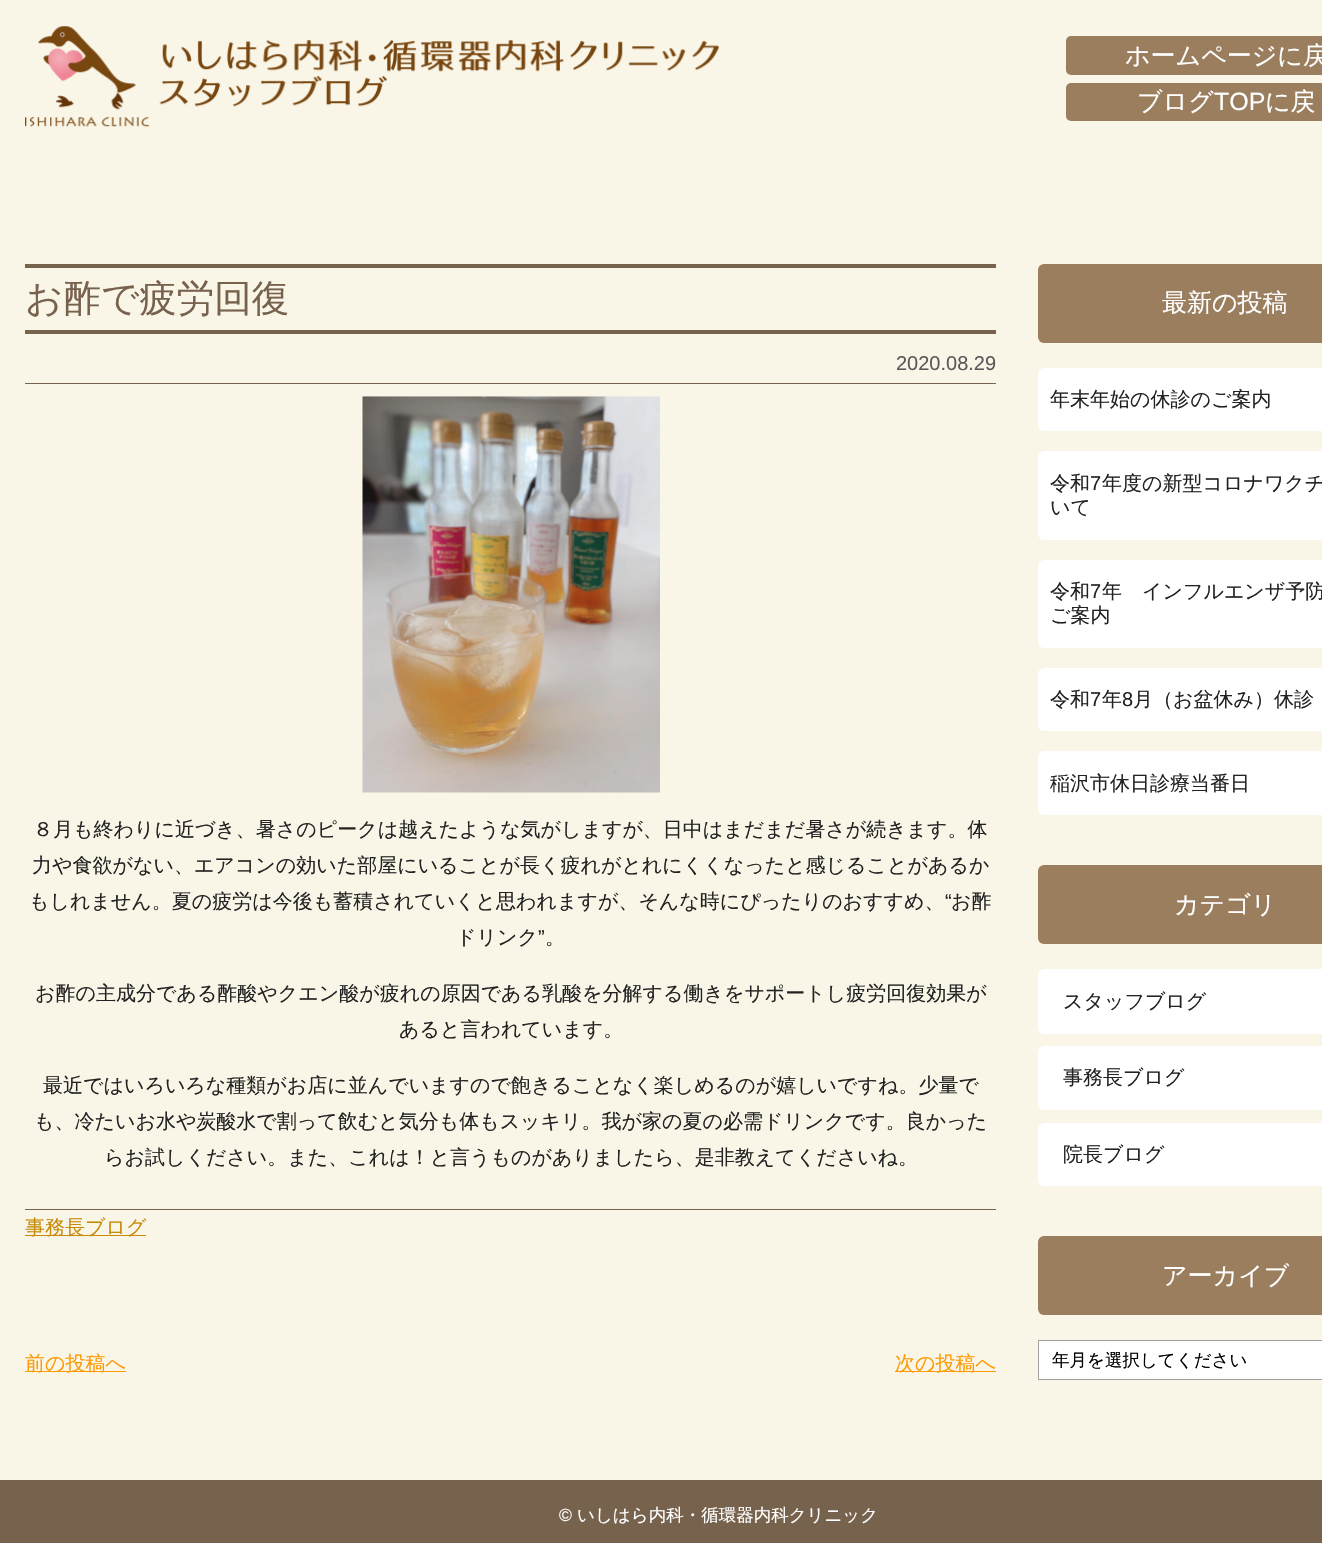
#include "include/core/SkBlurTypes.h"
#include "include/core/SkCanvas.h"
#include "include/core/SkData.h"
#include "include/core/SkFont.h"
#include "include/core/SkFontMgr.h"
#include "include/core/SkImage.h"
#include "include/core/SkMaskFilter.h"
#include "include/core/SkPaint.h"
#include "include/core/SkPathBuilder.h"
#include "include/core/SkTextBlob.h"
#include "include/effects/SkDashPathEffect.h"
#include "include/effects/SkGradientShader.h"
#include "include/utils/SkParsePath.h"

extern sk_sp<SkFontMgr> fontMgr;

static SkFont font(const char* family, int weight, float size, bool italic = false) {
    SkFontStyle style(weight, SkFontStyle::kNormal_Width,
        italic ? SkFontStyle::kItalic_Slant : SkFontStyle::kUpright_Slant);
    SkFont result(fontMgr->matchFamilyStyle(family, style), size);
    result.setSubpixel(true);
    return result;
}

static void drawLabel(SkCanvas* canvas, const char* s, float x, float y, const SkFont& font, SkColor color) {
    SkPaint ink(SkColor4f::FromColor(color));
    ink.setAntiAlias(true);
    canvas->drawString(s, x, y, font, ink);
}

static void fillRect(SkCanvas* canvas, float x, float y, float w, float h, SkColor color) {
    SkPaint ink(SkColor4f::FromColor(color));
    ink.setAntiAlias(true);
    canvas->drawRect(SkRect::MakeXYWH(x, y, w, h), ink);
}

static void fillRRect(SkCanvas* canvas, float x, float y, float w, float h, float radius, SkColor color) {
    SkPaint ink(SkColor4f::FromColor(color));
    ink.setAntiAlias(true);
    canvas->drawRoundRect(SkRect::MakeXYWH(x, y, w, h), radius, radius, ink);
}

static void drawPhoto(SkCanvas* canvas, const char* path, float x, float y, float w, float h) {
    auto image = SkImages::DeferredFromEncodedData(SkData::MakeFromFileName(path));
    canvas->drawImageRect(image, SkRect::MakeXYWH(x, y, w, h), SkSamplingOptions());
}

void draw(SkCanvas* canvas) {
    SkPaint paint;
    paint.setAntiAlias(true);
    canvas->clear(0xFFF9F5E7);
    drawPhoto(canvas, "assets/img1.png", 25, 26, 694, 101);
    fillRRect(canvas, 1066, 36, 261, 39, 5, 0xFF9A7E5E);
    SkFont font1 = font("WenQuanYi Zen Hei", 500, 25);
    drawLabel(canvas, "ホームページに戻", 1125, 64, font1, 0xFFFFFFFF);
    fillRRect(canvas, 1066, 83, 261, 38, 5, 0xFF9A7E5E);
    drawLabel(canvas, "ブログ", 1137, 110, font1, 0xFFFFFFFF);
    SkFont font2 = font("Liberation Sans", 400, 25);
    drawLabel(canvas, "TOP", 1214, 110, font2, 0xFFFFFFFF);
    drawLabel(canvas, "に戻", 1265, 110, font1, 0xFFFFFFFF);
    fillRect(canvas, 25, 264, 971, 4, 0xFF77624E);
    fillRect(canvas, 25, 330, 971, 4, 0xFF77624E);
    SkFont font3 = font("WenQuanYi Zen Hei", 500, 37.5f);
    drawLabel(canvas, "お酢で疲労回復", 25, 311, font3, 0xFF77624E);
    fillRect(canvas, 25, 383, 971, 1, 0xFF77624E);
    SkFont font4 = font("Liberation Sans", 400, 20);
    drawLabel(canvas, "2020.08.29", 896, 370, font4, 0xFF595959);
    drawPhoto(canvas, "assets/img2.png", 362, 396, 298, 397);
    SkFont font5 = font("WenQuanYi Zen Hei", 500, 20);
    drawLabel(canvas, "８月も終わりに近づき、暑さのピークは越えたような気がしますが、日中はまだまだ暑さが続きます。体", 33, 836, font5, 0xFF222222);
    drawLabel(canvas, "力や食欲がない、エアコンの効いた部屋にいることが長く疲れがとれにくくなったと感じることがあるか", 32, 872, font5, 0xFF222222);
    drawLabel(canvas, "もしれません。夏の疲労は今後も蓄積されていくと思われますが、そんな時にぴったりのおすすめ、", 29, 908, font5, 0xFF222222);
    drawLabel(canvas, "“", 945, 908, font4, 0xFF222222);
    drawLabel(canvas, "お酢", 951, 908, font5, 0xFF222222);
    drawLabel(canvas, "ドリンク", 456, 944, font5, 0xFF222222);
    drawLabel(canvas, "”", 538, 944, font4, 0xFF222222);
    drawLabel(canvas, "。", 545, 944, font5, 0xFF222222);
    drawLabel(canvas, "お酢の主成分である酢酸やクエン酸が疲れの原因である乳酸を分解する働きをサポートし疲労回復効果が", 35, 1000, font5, 0xFF222222);
    drawLabel(canvas, "あると言われています。", 399, 1036, font5, 0xFF222222);
    drawLabel(canvas, "最近ではいろいろな種類がお店に並んでいますので飽きることなく楽しめるのが嬉しいですね。少量で", 43, 1092, font5, 0xFF222222);
    drawLabel(canvas, "も、冷たいお水や炭酸水で割って飲むと気分も体もスッキリ。我が家の夏の必需ドリンクです。良かった", 34, 1128, font5, 0xFF222222);
    drawLabel(canvas, "らお試しください。また、これは！と言うものがありましたら、是非教えてくださいね。", 104, 1164, font5, 0xFF222222);
    fillRect(canvas, 25, 1209, 971, 1, 0xFF77624E);
    fillRect(canvas, 25, 1235, 121, 1, 0xFFC88A09);
    drawLabel(canvas, "事務長ブログ", 25, 1234, font5, 0xFFC88A09);
    fillRect(canvas, 25, 1371, 101, 1, 0xFFFF9900);
    drawLabel(canvas, "前の投稿へ", 25, 1370, font5, 0xFFFF9900);
    fillRect(canvas, 895, 1371, 101, 1, 0xFFFF9900);
    drawLabel(canvas, "次の投稿へ", 895, 1370, font5, 0xFFFF9900);
    fillRRect(canvas, 1038, 264, 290, 79, 6, 0xFF9A7E5E);
    drawLabel(canvas, "最新の投稿", 1162, 311, font1, 0xFFFFFFFF);
    fillRRect(canvas, 1038, 368, 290, 63, 6, 0xFFFFFFFF);
    drawLabel(canvas, "年末年始の休診のご案内", 1050, 406, font5, 0xFF222222);
    fillRRect(canvas, 1038, 451, 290, 89, 6, 0xFFFFFFFF);
    drawLabel(canvas, "令和", 1050, 490, font5, 0xFF222222);
    drawLabel(canvas, "7", 1090, 490, font4, 0xFF222222);
    drawLabel(canvas, "年度の新型コロナワクチ", 1102, 490, font5, 0xFF222222);
    drawLabel(canvas, "いて", 1050, 514, font5, 0xFF222222);
    fillRRect(canvas, 1038, 560, 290, 88, 6, 0xFFFFFFFF);
    drawLabel(canvas, "令和", 1050, 598, font5, 0xFF222222);
    drawLabel(canvas, "7", 1090, 598, font4, 0xFF222222);
    drawLabel(canvas, "年　インフルエンザ予防", 1102, 598, font5, 0xFF222222);
    drawLabel(canvas, "ご案内", 1050, 622, font5, 0xFF222222);
    fillRRect(canvas, 1038, 668, 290, 63, 6, 0xFFFFFFFF);
    drawLabel(canvas, "令和", 1050, 706, font5, 0xFF222222);
    drawLabel(canvas, "7", 1090, 706, font4, 0xFF222222);
    drawLabel(canvas, "年", 1102, 706, font5, 0xFF222222);
    drawLabel(canvas, "8", 1122, 706, font4, 0xFF222222);
    drawLabel(canvas, "月（お盆休み）休診", 1133, 706, font5, 0xFF222222);
    fillRRect(canvas, 1038, 751, 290, 64, 6, 0xFFFFFFFF);
    drawLabel(canvas, "稲沢市休日診療当番日", 1050, 790, font5, 0xFF222222);
    fillRRect(canvas, 1038, 865, 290, 79, 6, 0xFF9A7E5E);
    drawLabel(canvas, "カテゴリ", 1174, 913, font1, 0xFFFFFFFF);
    fillRRect(canvas, 1038, 969, 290, 65, 6, 0xFFFFFFFF);
    drawLabel(canvas, "スタッフブログ", 1063, 1008, font5, 0xFF222222);
    fillRRect(canvas, 1038, 1046, 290, 64, 6, 0xFFFFFFFF);
    drawLabel(canvas, "事務長ブログ", 1063, 1084, font5, 0xFF222222);
    fillRRect(canvas, 1038, 1123, 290, 63, 6, 0xFFFFFFFF);
    drawLabel(canvas, "院長ブログ", 1063, 1161, font5, 0xFF222222);
    fillRRect(canvas, 1038, 1236, 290, 79, 6, 0xFF9A7E5E);
    drawLabel(canvas, "アーカイブ", 1162, 1284, font1, 0xFFFFFFFF);
    paint.setColor(0xFFFFFFFF);
    canvas->drawRect(SkRect::MakeXYWH(1038.5f, 1340.5f, 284, 39), paint);
    paint.setStroke(true);
    paint.setStrokeWidth(1);
    paint.setColor(0xFFA0A0A0);
    canvas->drawRect(SkRect::MakeXYWH(1038.5f, 1340.5f, 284, 39), paint);
    SkFont font6 = font("WenQuanYi Zen Hei", 500, 17.5f);
    drawLabel(canvas, "年月を選択してください", 1052, 1366, font6, 0xFF000000);
    fillRect(canvas, 0, 1480, 1322, 63, 0xFF77624E);
    SkFont font7 = font("Liberation Sans", 400, 17.5f);
    drawLabel(canvas, "©", 559, 1521, font7, 0xFFFFFFFF);
    drawLabel(canvas, "いしはら内科・循環器内科クリニック", 577, 1521, font6, 0xFFFFFFFF);
}
